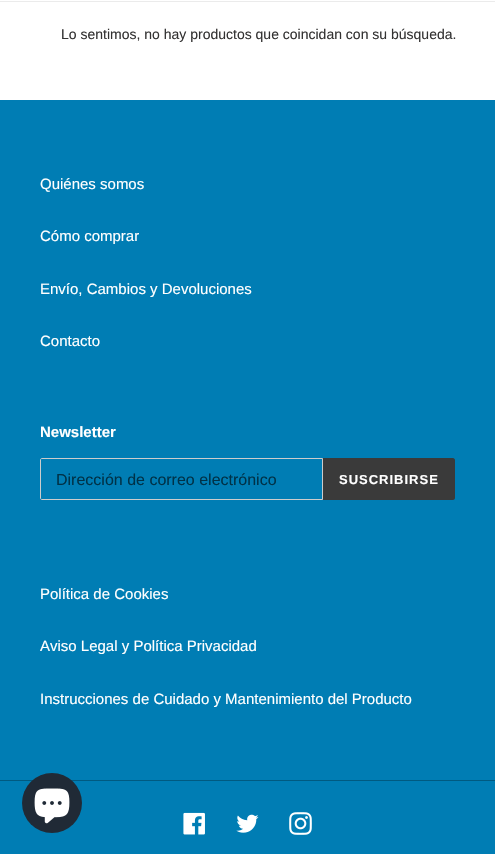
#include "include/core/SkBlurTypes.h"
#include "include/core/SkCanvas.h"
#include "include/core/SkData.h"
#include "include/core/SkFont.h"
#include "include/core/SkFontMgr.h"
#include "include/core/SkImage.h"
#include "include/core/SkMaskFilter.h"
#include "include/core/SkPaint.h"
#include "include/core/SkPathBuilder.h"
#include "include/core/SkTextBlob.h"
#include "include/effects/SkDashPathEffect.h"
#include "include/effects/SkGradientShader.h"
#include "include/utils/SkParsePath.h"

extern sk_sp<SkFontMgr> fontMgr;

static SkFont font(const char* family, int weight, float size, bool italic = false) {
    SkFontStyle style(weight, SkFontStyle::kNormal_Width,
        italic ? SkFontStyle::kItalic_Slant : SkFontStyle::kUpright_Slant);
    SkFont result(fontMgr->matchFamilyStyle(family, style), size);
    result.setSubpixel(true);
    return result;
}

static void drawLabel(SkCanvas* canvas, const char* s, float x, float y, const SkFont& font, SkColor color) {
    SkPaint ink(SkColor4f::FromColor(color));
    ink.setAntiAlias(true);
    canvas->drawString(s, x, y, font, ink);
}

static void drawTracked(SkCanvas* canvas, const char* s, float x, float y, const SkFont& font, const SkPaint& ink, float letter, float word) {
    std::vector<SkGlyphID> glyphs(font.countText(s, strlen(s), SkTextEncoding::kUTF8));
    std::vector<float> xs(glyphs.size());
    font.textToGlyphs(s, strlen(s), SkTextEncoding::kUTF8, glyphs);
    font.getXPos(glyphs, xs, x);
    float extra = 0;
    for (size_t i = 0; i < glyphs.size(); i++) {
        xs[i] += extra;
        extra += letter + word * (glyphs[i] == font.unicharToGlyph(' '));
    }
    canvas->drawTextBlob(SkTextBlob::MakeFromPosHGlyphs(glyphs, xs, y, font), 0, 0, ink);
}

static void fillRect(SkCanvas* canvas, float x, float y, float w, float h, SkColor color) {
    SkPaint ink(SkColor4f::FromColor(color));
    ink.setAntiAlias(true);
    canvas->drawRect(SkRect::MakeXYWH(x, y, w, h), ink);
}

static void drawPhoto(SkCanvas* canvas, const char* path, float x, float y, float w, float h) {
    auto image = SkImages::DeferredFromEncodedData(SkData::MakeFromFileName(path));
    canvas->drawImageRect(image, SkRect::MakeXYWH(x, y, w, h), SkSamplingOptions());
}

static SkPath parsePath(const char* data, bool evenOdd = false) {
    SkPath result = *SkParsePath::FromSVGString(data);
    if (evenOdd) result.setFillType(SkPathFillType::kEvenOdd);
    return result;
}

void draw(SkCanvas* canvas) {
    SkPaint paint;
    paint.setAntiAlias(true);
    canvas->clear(0xFFFFFFFF);
    fillRect(canvas, 0, 1, 495, 1, 0xFFEBEBEB);
    SkFont font1 = font("Liberation Sans", 400, 14);
    drawLabel(canvas, "Lo sentimos, no hay productos que coincidan con su búsqueda.", 61, 39, font1, 0xFF333232);
    fillRect(canvas, 0, 100, 495, 754, 0xFF007DB4);
    SkFont font2 = font("Liberation Sans", 400, 15);
    drawLabel(canvas, "Quiénes somos", 40, 189, font2, 0xFFFFFFFF);
    drawLabel(canvas, "Cómo comprar", 40, 241, font2, 0xFFFFFFFF);
    drawLabel(canvas, "Envío, Cambios y Devoluciones", 40, 294, font2, 0xFFFFFFFF);
    drawLabel(canvas, "Contacto", 40, 346, font2, 0xFFFFFFFF);
    SkFont font3 = font("Liberation Sans", 700, 15);
    drawLabel(canvas, "Newsletter", 40, 437, font3, 0xFFFFFFFF);
    paint.setStroke(true);
    paint.setStrokeWidth(1);
    paint.setColor(0xFFCCCCCC);
    canvas->drawPath(parsePath("M42 458.5H322.5V499.5H42C41 499.5 40.5 499 40.5 498V460C40.5 459 41 458.5 42 458.5Z"), paint);
    SkFont font4 = font("Liberation Sans", 400, 16);
    drawLabel(canvas, "Dirección de correo electrónico", 56, 485, font4, 0xFF003248);
    paint.setStroke(false);
    paint.setColor(0xFF3A3A3A);
    canvas->drawPath(parsePath("M323 458H453C454 458 455 459 455 460V498C455 499 454 500 453 500H323Z"), paint);
    SkFont font5 = font("Liberation Sans", 700, 13);
    paint.setColor(0xFFFFFFFF);
    drawTracked(canvas, "SUSCRIBIRSE", 339, 484, font5, paint, 1, 0);
    drawLabel(canvas, "Política de Cookies", 40, 599, font2, 0xFFFFFFFF);
    drawLabel(canvas, "Aviso Legal y Política Privacidad", 40, 651, font2, 0xFFFFFFFF);
    drawLabel(canvas, "Instrucciones de Cuidado y Mantenimiento del Producto", 40, 704, font2, 0xFFFFFFFF);
    fillRect(canvas, 0, 780, 495, 1, 0xFF005A81);
    drawPhoto(canvas, "assets/img1.png", 183, 812, 22, 23);
    drawPhoto(canvas, "assets/img2.png", 236, 814, 23, 19);
    drawPhoto(canvas, "assets/img3.png", 289, 812, 23, 23);
    paint.setColor(0xFF202A36);
    canvas->drawCircle(52, 803, 30, paint);
    drawPhoto(canvas, "assets/img4.png", 34, 788, 36, 36);
}
